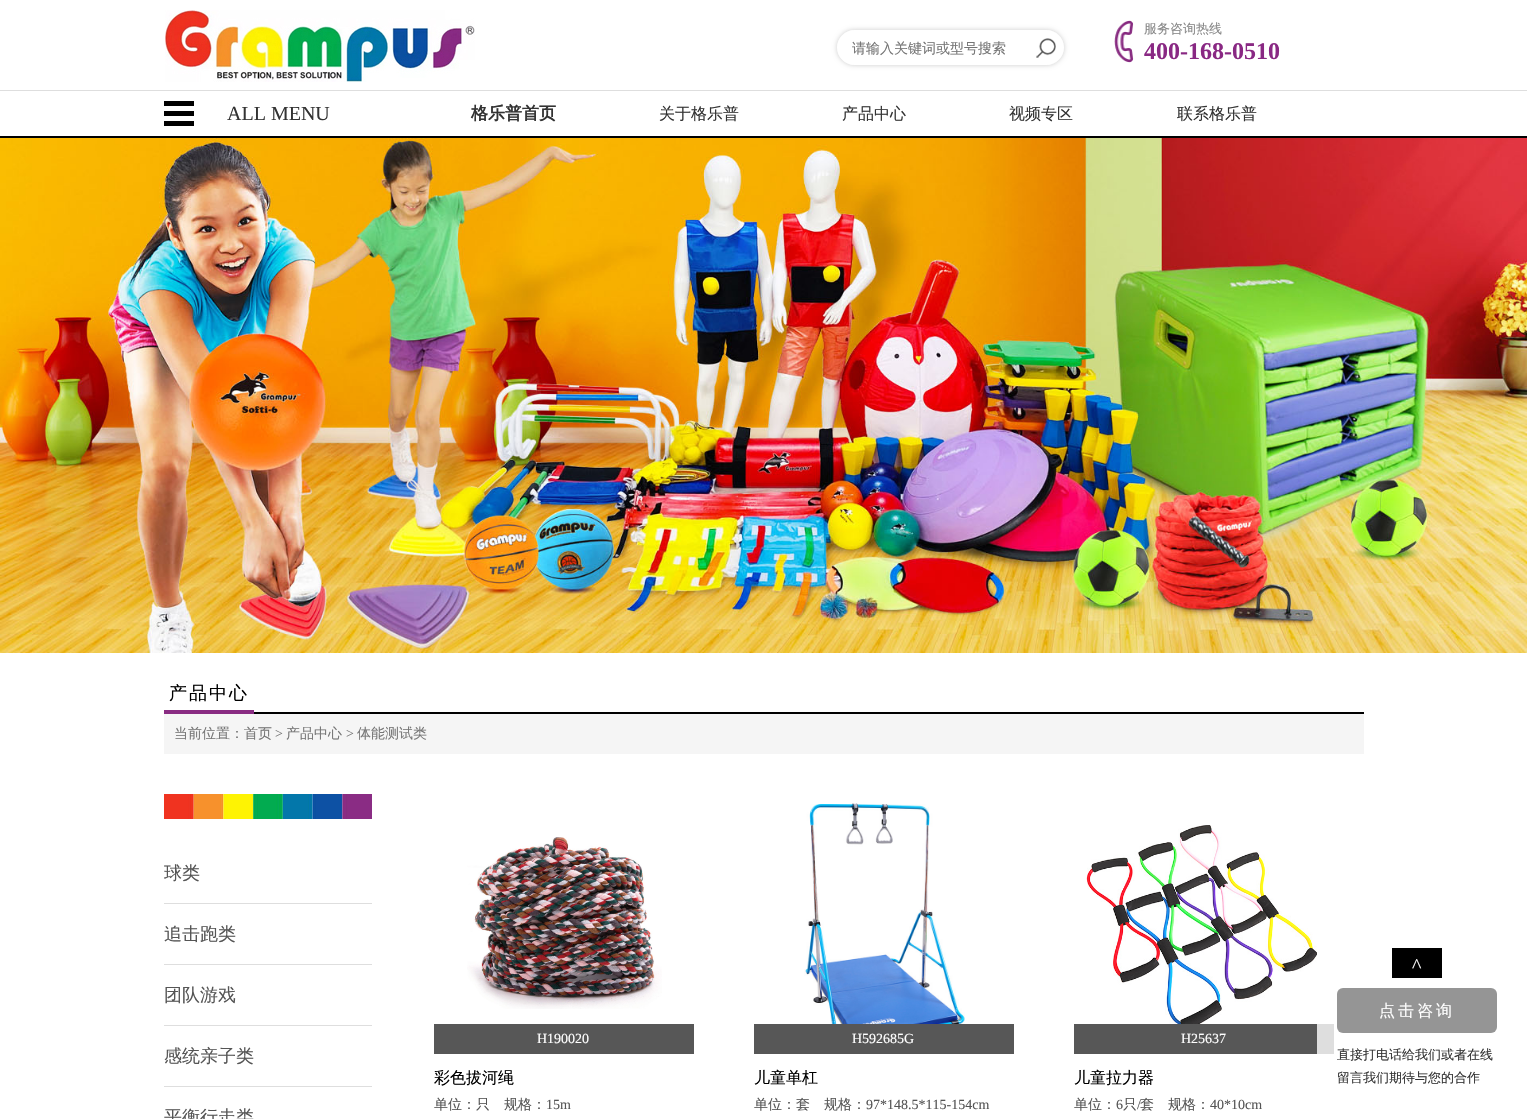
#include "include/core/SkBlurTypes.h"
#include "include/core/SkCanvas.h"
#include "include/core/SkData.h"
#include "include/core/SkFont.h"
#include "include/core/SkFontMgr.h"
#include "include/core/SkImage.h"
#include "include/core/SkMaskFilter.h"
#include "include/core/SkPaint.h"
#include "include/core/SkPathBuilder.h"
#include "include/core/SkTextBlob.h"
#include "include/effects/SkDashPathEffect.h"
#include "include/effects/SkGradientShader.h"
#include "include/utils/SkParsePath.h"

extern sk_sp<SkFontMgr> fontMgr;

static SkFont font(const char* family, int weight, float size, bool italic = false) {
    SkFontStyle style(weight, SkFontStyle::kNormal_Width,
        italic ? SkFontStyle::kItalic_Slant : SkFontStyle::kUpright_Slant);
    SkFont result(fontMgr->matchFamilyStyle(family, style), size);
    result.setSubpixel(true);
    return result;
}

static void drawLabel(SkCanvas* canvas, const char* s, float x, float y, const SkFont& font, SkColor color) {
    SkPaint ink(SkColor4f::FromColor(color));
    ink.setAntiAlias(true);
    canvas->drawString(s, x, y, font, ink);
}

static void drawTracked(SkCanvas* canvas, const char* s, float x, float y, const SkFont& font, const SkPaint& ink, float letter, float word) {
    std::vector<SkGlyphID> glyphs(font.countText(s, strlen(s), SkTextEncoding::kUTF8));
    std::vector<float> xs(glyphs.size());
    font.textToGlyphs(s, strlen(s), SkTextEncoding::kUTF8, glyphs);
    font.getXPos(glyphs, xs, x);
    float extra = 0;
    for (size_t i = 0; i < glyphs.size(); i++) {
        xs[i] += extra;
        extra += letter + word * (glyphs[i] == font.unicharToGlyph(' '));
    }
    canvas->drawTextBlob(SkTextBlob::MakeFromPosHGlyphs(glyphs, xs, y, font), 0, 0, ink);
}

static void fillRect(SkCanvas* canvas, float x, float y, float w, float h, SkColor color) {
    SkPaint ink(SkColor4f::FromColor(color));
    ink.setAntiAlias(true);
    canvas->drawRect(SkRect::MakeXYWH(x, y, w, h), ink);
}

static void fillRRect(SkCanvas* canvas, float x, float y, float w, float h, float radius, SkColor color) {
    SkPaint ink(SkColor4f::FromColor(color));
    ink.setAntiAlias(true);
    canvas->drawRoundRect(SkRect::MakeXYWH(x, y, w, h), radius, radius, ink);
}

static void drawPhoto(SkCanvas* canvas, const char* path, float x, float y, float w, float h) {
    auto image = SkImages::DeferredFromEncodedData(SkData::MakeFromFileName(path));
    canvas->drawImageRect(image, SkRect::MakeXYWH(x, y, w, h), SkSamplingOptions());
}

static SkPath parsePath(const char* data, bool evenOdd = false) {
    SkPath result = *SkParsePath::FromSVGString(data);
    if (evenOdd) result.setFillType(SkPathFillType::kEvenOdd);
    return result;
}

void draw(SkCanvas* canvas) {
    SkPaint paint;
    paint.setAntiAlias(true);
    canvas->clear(0xFFFFFFFF);
    drawPhoto(canvas, "assets/img1.png", 165, 10, 310, 72);
    canvas->save();
    canvas->clipPath(parsePath("M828 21H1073V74H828ZM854.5 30H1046.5C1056 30 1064 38 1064 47.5C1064 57 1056 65 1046.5 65H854.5C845 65 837 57 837 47.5C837 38 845 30 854.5 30Z", true), true);
    paint.setColor(0x33000000);
    paint.setMaskFilter(SkMaskFilter::MakeBlur(kNormal_SkBlurStyle, 2.5f));
    canvas->drawRoundRect(SkRect::MakeXYWH(837, 30, 227, 35), 17.5f, 17.5f, paint);
    paint.setMaskFilter(nullptr);
    canvas->restore();
    fillRRect(canvas, 837, 30, 227, 35, 17.5f, 0x80FFFFFF);
    SkFont font1 = font("WenQuanYi Zen Hei", 500, 14);
    drawLabel(canvas, "请输入关键词或型号搜索", 852, 53, font1, 0xFF757575);
    drawPhoto(canvas, "assets/img2.png", 1036, 38, 20, 20);
    drawPhoto(canvas, "assets/img3.png", 1114, 20, 20, 43);
    SkFont font2 = font("WenQuanYi Zen Hei", 500, 13);
    drawLabel(canvas, "服务咨询热线", 1144, 33, font2, 0xFF888888);
    SkFont font3 = font("Liberation Serif", 700, 24);
    drawLabel(canvas, "400-168-0510", 1144, 59, font3, 0xFF892883);
    fillRect(canvas, 0, 90, 1527, 1, 0xFFDEDEDE);
    fillRect(canvas, 0, 136, 1527, 2, 0xFF000000);
    fillRect(canvas, 164, 101, 30, 5, 0xFF000000);
    fillRect(canvas, 164, 111, 30, 5, 0xFF000000);
    fillRect(canvas, 164, 121, 30, 5, 0xFF000000);
    SkFont font4 = font("Liberation Serif", 400, 20);
    drawLabel(canvas, "ALL MENU", 227, 120, font4, 0xFF333333);
    SkFont font5 = font("WenQuanYi Zen Hei", 700, 17);
    drawLabel(canvas, "格乐普首页", 471, 119, font5, 0xFF333333);
    SkFont font6 = font("WenQuanYi Zen Hei", 500, 16);
    drawLabel(canvas, "关于格乐普", 659, 119, font6, 0xFF333333);
    drawLabel(canvas, "产品中心", 842, 119, font6, 0xFF333333);
    drawLabel(canvas, "视频专区", 1009, 119, font6, 0xFF333333);
    drawLabel(canvas, "联系格乐普", 1177, 119, font6, 0xFF333333);
    drawPhoto(canvas, "assets/img4.png", 0, 138, 1527, 515);
    fillRect(canvas, 254, 712, 1110, 2, 0xFF000000);
    fillRect(canvas, 164, 710, 90, 4, 0xFF892C82);
    SkFont font7 = font("WenQuanYi Zen Hei", 500, 18);
    paint.setColor(0xFF000000);
    drawTracked(canvas, "产品中心", 169, 699, font7, paint, 2, 0);
    fillRect(canvas, 164, 714, 1200, 40, 0xFFF5F5F5);
    drawLabel(canvas, "当前位置：首页", 174, 738, font1, 0xFF757575);
    SkFont font8 = font("Liberation Serif", 400, 14);
    drawLabel(canvas, ">", 275, 738, font8, 0xFF757575);
    drawLabel(canvas, "产品中心", 286, 738, font1, 0xFF757575);
    drawLabel(canvas, ">", 346, 738, font8, 0xFF757575);
    drawLabel(canvas, "体能测试类", 357, 738, font1, 0xFF757575);
    drawPhoto(canvas, "assets/img5.png", 164, 794, 208, 25);
    fillRect(canvas, 164, 903, 208, 1, 0xFFDEDEDE);
    drawLabel(canvas, "球类", 164, 879, font7, 0xFF555555);
    fillRect(canvas, 164, 964, 208, 1, 0xFFDEDEDE);
    drawLabel(canvas, "追击跑类", 164, 940, font7, 0xFF555555);
    fillRect(canvas, 164, 1025, 208, 1, 0xFFDEDEDE);
    drawLabel(canvas, "团队游戏", 164, 1001, font7, 0xFF555555);
    fillRect(canvas, 164, 1086, 208, 1, 0xFFDEDEDE);
    drawLabel(canvas, "感统亲子类", 164, 1062, font7, 0xFF555555);
    drawLabel(canvas, "平衡行走类", 164, 1123, font7, 0xFF555555);
    drawPhoto(canvas, "assets/img6.png", 467, 837, 195, 172);
    fillRect(canvas, 434, 1024, 260, 30, 0xFF575757);
    drawLabel(canvas, "H190020", 537, 1043, font8, 0xFFFFFFFF);
    drawLabel(canvas, "彩色拔河绳", 434, 1083, font6, 0xFF000000);
    drawLabel(canvas, "单位：只", 434, 1109, font1, 0xFF555555);
    drawLabel(canvas, "规格：", 504, 1109, font1, 0xFF555555);
    drawLabel(canvas, "15m", 546, 1109, font8, 0xFF555555);
    drawPhoto(canvas, "assets/img7.png", 804, 803, 161, 221);
    fillRect(canvas, 754, 1024, 260, 30, 0xFF575757);
    drawLabel(canvas, "H592685G", 852, 1043, font8, 0xFFFFFFFF);
    drawLabel(canvas, "儿童单杠", 754, 1083, font6, 0xFF000000);
    drawLabel(canvas, "单位：套", 754, 1109, font1, 0xFF555555);
    drawLabel(canvas, "规格：", 824, 1109, font1, 0xFF555555);
    drawLabel(canvas, "97*148.5*115-154cm", 866, 1109, font8, 0xFF555555);
    drawPhoto(canvas, "assets/img8.png", 1086, 825, 232, 199);
    fillRect(canvas, 1074, 1024, 260, 30, 0xFF575757);
    drawLabel(canvas, "H25637", 1181, 1043, font8, 0xFFFFFFFF);
    drawLabel(canvas, "儿童拉力器", 1074, 1083, font6, 0xFF000000);
    drawLabel(canvas, "单位：", 1074, 1109, font1, 0xFF555555);
    drawLabel(canvas, "6", 1116, 1109, font8, 0xFF555555);
    drawLabel(canvas, "只", 1123, 1109, font1, 0xFF555555);
    drawLabel(canvas, "/", 1137, 1109, font8, 0xFF555555);
    drawLabel(canvas, "套", 1140, 1109, font1, 0xFF555555);
    drawLabel(canvas, "规格：", 1168, 1109, font1, 0xFF555555);
    drawLabel(canvas, "40*10cm", 1210, 1109, font8, 0xFF555555);
    fillRRect(canvas, 1317, 928, 200, 181, 5, 0xCCFFFFFF);
    fillRect(canvas, 1392, 948, 50, 30, 0xFF000000);
    drawLabel(canvas, "^", 1412, 972, font4, 0xFFFFFFFF);
    fillRRect(canvas, 1337, 988, 160, 45, 6, 0xFF959595);
    paint.setColor(0xFFFFFFFF);
    drawTracked(canvas, "点击咨询", 1379, 1016, font6, paint, 3, 0);
    drawLabel(canvas, "直接打电话给我们或者在线", 1337, 1059, font2, 0xFF333333);
    drawLabel(canvas, "留言我们期待与您的合作", 1337, 1082, font2, 0xFF333333);
}
